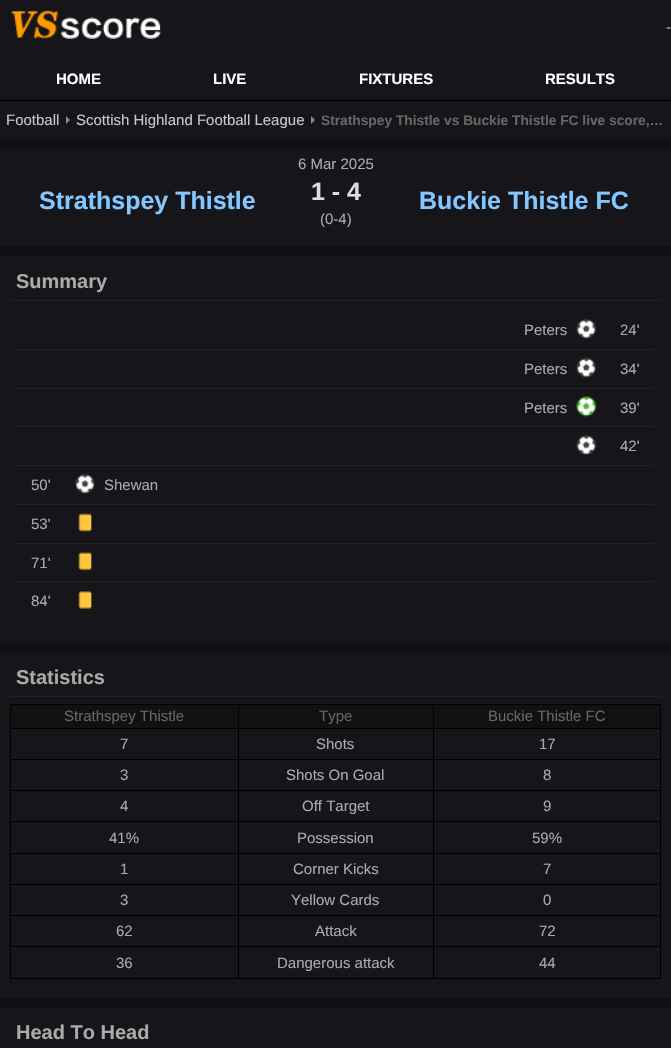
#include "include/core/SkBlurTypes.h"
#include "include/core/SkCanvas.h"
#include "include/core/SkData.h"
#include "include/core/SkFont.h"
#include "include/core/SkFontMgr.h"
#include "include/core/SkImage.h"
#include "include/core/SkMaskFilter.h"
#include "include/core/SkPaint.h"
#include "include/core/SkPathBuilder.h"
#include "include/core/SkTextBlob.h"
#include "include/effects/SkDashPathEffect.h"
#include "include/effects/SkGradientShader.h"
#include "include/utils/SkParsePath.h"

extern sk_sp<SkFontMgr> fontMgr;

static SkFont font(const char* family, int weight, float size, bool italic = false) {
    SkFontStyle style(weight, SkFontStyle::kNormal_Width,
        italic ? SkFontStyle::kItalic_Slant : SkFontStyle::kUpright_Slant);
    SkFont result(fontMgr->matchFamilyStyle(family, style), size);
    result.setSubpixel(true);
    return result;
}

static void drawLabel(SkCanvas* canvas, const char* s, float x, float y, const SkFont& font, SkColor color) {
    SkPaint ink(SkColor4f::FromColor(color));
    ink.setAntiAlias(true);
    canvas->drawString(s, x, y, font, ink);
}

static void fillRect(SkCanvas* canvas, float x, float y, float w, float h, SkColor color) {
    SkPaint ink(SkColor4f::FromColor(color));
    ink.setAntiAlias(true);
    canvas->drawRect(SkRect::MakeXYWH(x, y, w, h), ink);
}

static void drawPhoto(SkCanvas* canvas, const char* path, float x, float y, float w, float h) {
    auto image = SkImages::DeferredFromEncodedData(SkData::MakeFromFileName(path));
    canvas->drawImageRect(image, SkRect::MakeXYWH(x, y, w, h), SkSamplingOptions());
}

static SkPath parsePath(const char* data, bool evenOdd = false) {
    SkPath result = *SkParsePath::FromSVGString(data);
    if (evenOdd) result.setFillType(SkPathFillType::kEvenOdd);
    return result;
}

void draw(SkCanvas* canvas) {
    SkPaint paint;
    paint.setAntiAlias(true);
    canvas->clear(0xFF16161A);
    fillRect(canvas, 0, 100, 671, 1, 0xFF000000);
    drawPhoto(canvas, "assets/img1.png", 11, 10, 151, 29);
    SkFont font1 = font("Liberation Sans", 400, 15);
    drawLabel(canvas, "-", 666, 32, font1, 0xFFAAAAAA);
    SkFont font2 = font("Liberation Sans", 700, 15);
    drawLabel(canvas, "HOME", 56, 84, font2, 0xFFFFFFFF);
    drawLabel(canvas, "LIVE", 213, 84, font2, 0xFFFFFFFF);
    drawLabel(canvas, "FIXTURES", 359, 84, font2, 0xFFFFFFFF);
    drawLabel(canvas, "RESULTS", 545, 84, font2, 0xFFFFFFFF);
    drawLabel(canvas, "Football", 6, 125, font1, 0xFFC8C8C8);
    paint.setColor(0xFF888888);
    canvas->drawPath(parsePath("M66 124V116L70 120Z"), paint);
    drawLabel(canvas, "Scottish Highland Football League", 76, 125, font1, 0xFFC8C8C8);
    canvas->drawPath(parsePath("M311 124V116L315 120Z"), paint);
    SkFont font3 = font("Liberation Sans", 700, 13.75f);
    drawLabel(canvas, "Strathspey Thistle vs Buckie Thistle FC live score,…", 321, 125, font3, 0xFF666666);
    fillRect(canvas, 0, 139, 671, 10, 0xFF101014);
    drawLabel(canvas, "6 Mar 2025", 298, 169, font1, 0xFFAAAAAA);
    SkFont font4 = font("Liberation Sans", 700, 25);
    drawLabel(canvas, "Strathspey Thistle", 39, 209, font4, 0xFF82C7FF);
    drawLabel(canvas, "1 - 4", 311, 200, font4, 0xFFDDDDDD);
    drawLabel(canvas, "(0-4)", 320, 224, font1, 0xFFAAAAAA);
    drawLabel(canvas, "Buckie Thistle FC", 419, 209, font4, 0xFF82C7FF);
    fillRect(canvas, 0, 246, 671, 10, 0xFF101014);
    fillRect(canvas, 10, 300, 651, 1, 0xFF222222);
    SkFont font5 = font("Liberation Sans", 700, 20);
    drawLabel(canvas, "Summary", 16, 288, font5, 0xFFAAAAAA);
    fillRect(canvas, 16, 349, 639, 1, 0xFF222222);
    drawLabel(canvas, "Peters", 524, 335, font1, 0xFFAAAAAA);
    drawPhoto(canvas, "assets/img2.png", 576, 318, 21, 21);
    drawLabel(canvas, "24'", 620, 335, font1, 0xFFAAAAAA);
    fillRect(canvas, 16, 388, 639, 1, 0xFF222222);
    drawLabel(canvas, "Peters", 524, 374, font1, 0xFFAAAAAA);
    drawPhoto(canvas, "assets/img3.png", 576, 357, 21, 21);
    drawLabel(canvas, "34'", 620, 374, font1, 0xFFAAAAAA);
    fillRect(canvas, 16, 426, 639, 1, 0xFF222222);
    drawLabel(canvas, "Peters", 524, 413, font1, 0xFFAAAAAA);
    drawPhoto(canvas, "assets/img4.png", 576, 396, 21, 21);
    drawLabel(canvas, "39'", 620, 413, font1, 0xFFAAAAAA);
    fillRect(canvas, 16, 465, 639, 1, 0xFF222222);
    drawPhoto(canvas, "assets/img5.png", 576, 435, 21, 20);
    drawLabel(canvas, "42'", 620, 451, font1, 0xFFAAAAAA);
    fillRect(canvas, 16, 504, 639, 1, 0xFF222222);
    drawLabel(canvas, "50'", 31, 490, font1, 0xFFAAAAAA);
    drawPhoto(canvas, "assets/img6.png", 75, 473, 20, 21);
    drawLabel(canvas, "Shewan", 104, 490, font1, 0xFFAAAAAA);
    fillRect(canvas, 16, 543, 639, 1, 0xFF222222);
    drawLabel(canvas, "53'", 31, 529, font1, 0xFFAAAAAA);
    drawPhoto(canvas, "assets/img7.png", 78, 513, 14, 19);
    fillRect(canvas, 16, 581, 639, 1, 0xFF222222);
    drawLabel(canvas, "71'", 31, 568, font1, 0xFFAAAAAA);
    drawPhoto(canvas, "assets/img8.png", 78, 552, 14, 19);
    drawLabel(canvas, "84'", 31, 606, font1, 0xFFAAAAAA);
    drawPhoto(canvas, "assets/img9.png", 78, 591, 14, 18);
    fillRect(canvas, 0, 643, 671, 10, 0xFF101014);
    fillRect(canvas, 10, 696, 651, 1, 0xFF222222);
    drawLabel(canvas, "Statistics", 16, 684, font5, 0xFFAAAAAA);
    fillRect(canvas, 11, 705, 227, 23, 0xFF111111);
    fillRect(canvas, 433, 704, 228, 1, 0xFF000000);
    fillRect(canvas, 433, 728, 228, 1, 0xFF000000);
    fillRect(canvas, 433, 759, 228, 1, 0xFF000000);
    fillRect(canvas, 433, 790, 228, 1, 0xFF000000);
    fillRect(canvas, 433, 821, 228, 1, 0xFF000000);
    fillRect(canvas, 433, 853, 228, 1, 0xFF000000);
    fillRect(canvas, 433, 884, 228, 1, 0xFF000000);
    fillRect(canvas, 433, 915, 228, 1, 0xFF000000);
    fillRect(canvas, 433, 946, 228, 1, 0xFF000000);
    fillRect(canvas, 660, 946, 1, 33, 0xFF000000);
    fillRect(canvas, 433, 978, 228, 1, 0xFF000000);
    fillRect(canvas, 433, 946, 1, 33, 0xFF000000);
    fillRect(canvas, 238, 946, 196, 1, 0xFF000000);
    fillRect(canvas, 433, 915, 1, 33, 0xFF000000);
    fillRect(canvas, 238, 915, 196, 1, 0xFF000000);
    fillRect(canvas, 433, 884, 1, 32, 0xFF000000);
    fillRect(canvas, 238, 884, 196, 1, 0xFF000000);
    fillRect(canvas, 433, 853, 1, 32, 0xFF000000);
    fillRect(canvas, 238, 853, 196, 1, 0xFF000000);
    fillRect(canvas, 433, 821, 1, 33, 0xFF000000);
    fillRect(canvas, 238, 821, 196, 1, 0xFF000000);
    fillRect(canvas, 433, 790, 1, 33, 0xFF000000);
    fillRect(canvas, 238, 790, 196, 1, 0xFF000000);
    fillRect(canvas, 433, 759, 1, 32, 0xFF000000);
    fillRect(canvas, 238, 759, 196, 1, 0xFF000000);
    fillRect(canvas, 433, 728, 1, 32, 0xFF000000);
    fillRect(canvas, 238, 728, 196, 1, 0xFF000000);
    fillRect(canvas, 433, 704, 1, 25, 0xFF000000);
    fillRect(canvas, 238, 704, 196, 1, 0xFF000000);
    fillRect(canvas, 238, 978, 196, 1, 0xFF000000);
    fillRect(canvas, 238, 946, 1, 33, 0xFF000000);
    fillRect(canvas, 10, 946, 229, 1, 0xFF000000);
    fillRect(canvas, 238, 915, 1, 33, 0xFF000000);
    fillRect(canvas, 10, 915, 229, 1, 0xFF000000);
    fillRect(canvas, 238, 884, 1, 32, 0xFF000000);
    fillRect(canvas, 10, 884, 229, 1, 0xFF000000);
    fillRect(canvas, 238, 853, 1, 32, 0xFF000000);
    fillRect(canvas, 10, 853, 229, 1, 0xFF000000);
    fillRect(canvas, 238, 821, 1, 33, 0xFF000000);
    fillRect(canvas, 10, 821, 229, 1, 0xFF000000);
    fillRect(canvas, 238, 790, 1, 33, 0xFF000000);
    fillRect(canvas, 10, 790, 229, 1, 0xFF000000);
    fillRect(canvas, 238, 759, 1, 32, 0xFF000000);
    fillRect(canvas, 10, 759, 229, 1, 0xFF000000);
    fillRect(canvas, 238, 728, 1, 32, 0xFF000000);
    fillRect(canvas, 10, 728, 229, 1, 0xFF000000);
    fillRect(canvas, 238, 704, 1, 25, 0xFF000000);
    fillRect(canvas, 10, 704, 229, 1, 0xFF000000);
    fillRect(canvas, 10, 978, 229, 1, 0xFF000000);
    fillRect(canvas, 10, 946, 1, 33, 0xFF000000);
    fillRect(canvas, 10, 915, 1, 33, 0xFF000000);
    fillRect(canvas, 10, 884, 1, 32, 0xFF000000);
    fillRect(canvas, 10, 853, 1, 32, 0xFF000000);
    fillRect(canvas, 10, 821, 1, 33, 0xFF000000);
    fillRect(canvas, 10, 790, 1, 33, 0xFF000000);
    fillRect(canvas, 10, 759, 1, 32, 0xFF000000);
    fillRect(canvas, 10, 728, 1, 32, 0xFF000000);
    fillRect(canvas, 10, 704, 1, 25, 0xFF000000);
    drawLabel(canvas, "Strathspey Thistle", 64, 721, font1, 0xFF666666);
    fillRect(canvas, 239, 705, 194, 23, 0xFF111111);
    drawLabel(canvas, "Type", 319, 721, font1, 0xFF666666);
    fillRect(canvas, 434, 705, 226, 23, 0xFF111111);
    fillRect(canvas, 660, 915, 1, 33, 0xFF000000);
    fillRect(canvas, 660, 884, 1, 32, 0xFF000000);
    fillRect(canvas, 660, 853, 1, 32, 0xFF000000);
    fillRect(canvas, 660, 821, 1, 33, 0xFF000000);
    fillRect(canvas, 660, 790, 1, 33, 0xFF000000);
    fillRect(canvas, 660, 759, 1, 32, 0xFF000000);
    fillRect(canvas, 660, 728, 1, 32, 0xFF000000);
    fillRect(canvas, 660, 704, 1, 25, 0xFF000000);
    drawLabel(canvas, "Buckie Thistle FC", 488, 721, font1, 0xFF666666);
    drawLabel(canvas, "7", 120, 749, font1, 0xFFAAAAAA);
    drawLabel(canvas, "Shots", 316, 749, font1, 0xFFAAAAAA);
    drawLabel(canvas, "17", 539, 749, font1, 0xFFAAAAAA);
    drawLabel(canvas, "3", 120, 780, font1, 0xFFAAAAAA);
    drawLabel(canvas, "Shots On Goal", 286, 780, font1, 0xFFAAAAAA);
    drawLabel(canvas, "8", 543, 780, font1, 0xFFAAAAAA);
    drawLabel(canvas, "4", 120, 811, font1, 0xFFAAAAAA);
    drawLabel(canvas, "Off Target", 302, 811, font1, 0xFFAAAAAA);
    drawLabel(canvas, "9", 543, 811, font1, 0xFFAAAAAA);
    drawLabel(canvas, "41%", 109, 843, font1, 0xFFAAAAAA);
    drawLabel(canvas, "Possession", 297, 843, font1, 0xFFAAAAAA);
    drawLabel(canvas, "59%", 532, 843, font1, 0xFFAAAAAA);
    drawLabel(canvas, "1", 120, 874, font1, 0xFFAAAAAA);
    drawLabel(canvas, "Corner Kicks", 293, 874, font1, 0xFFAAAAAA);
    drawLabel(canvas, "7", 543, 874, font1, 0xFFAAAAAA);
    drawLabel(canvas, "3", 120, 905, font1, 0xFFAAAAAA);
    drawLabel(canvas, "Yellow Cards", 291, 905, font1, 0xFFAAAAAA);
    drawLabel(canvas, "0", 543, 905, font1, 0xFFAAAAAA);
    drawLabel(canvas, "62", 116, 936, font1, 0xFFAAAAAA);
    drawLabel(canvas, "Attack", 315, 936, font1, 0xFFAAAAAA);
    drawLabel(canvas, "72", 539, 936, font1, 0xFFAAAAAA);
    drawLabel(canvas, "36", 116, 968, font1, 0xFFAAAAAA);
    drawLabel(canvas, "Dangerous attack", 277, 968, font1, 0xFFAAAAAA);
    drawLabel(canvas, "44", 539, 968, font1, 0xFFAAAAAA);
    fillRect(canvas, 0, 998, 671, 10, 0xFF101014);
    drawLabel(canvas, "Head To Head", 16, 1039, font5, 0xFFAAAAAA);
}
